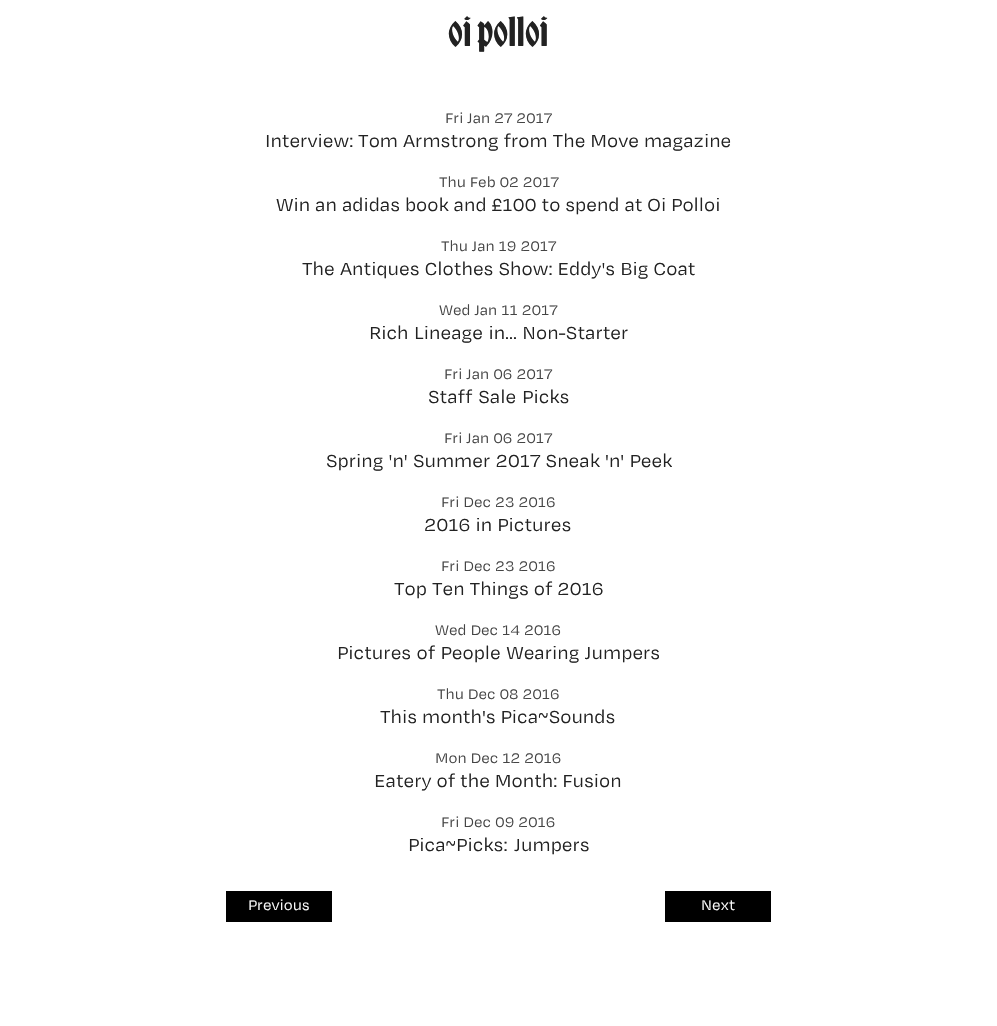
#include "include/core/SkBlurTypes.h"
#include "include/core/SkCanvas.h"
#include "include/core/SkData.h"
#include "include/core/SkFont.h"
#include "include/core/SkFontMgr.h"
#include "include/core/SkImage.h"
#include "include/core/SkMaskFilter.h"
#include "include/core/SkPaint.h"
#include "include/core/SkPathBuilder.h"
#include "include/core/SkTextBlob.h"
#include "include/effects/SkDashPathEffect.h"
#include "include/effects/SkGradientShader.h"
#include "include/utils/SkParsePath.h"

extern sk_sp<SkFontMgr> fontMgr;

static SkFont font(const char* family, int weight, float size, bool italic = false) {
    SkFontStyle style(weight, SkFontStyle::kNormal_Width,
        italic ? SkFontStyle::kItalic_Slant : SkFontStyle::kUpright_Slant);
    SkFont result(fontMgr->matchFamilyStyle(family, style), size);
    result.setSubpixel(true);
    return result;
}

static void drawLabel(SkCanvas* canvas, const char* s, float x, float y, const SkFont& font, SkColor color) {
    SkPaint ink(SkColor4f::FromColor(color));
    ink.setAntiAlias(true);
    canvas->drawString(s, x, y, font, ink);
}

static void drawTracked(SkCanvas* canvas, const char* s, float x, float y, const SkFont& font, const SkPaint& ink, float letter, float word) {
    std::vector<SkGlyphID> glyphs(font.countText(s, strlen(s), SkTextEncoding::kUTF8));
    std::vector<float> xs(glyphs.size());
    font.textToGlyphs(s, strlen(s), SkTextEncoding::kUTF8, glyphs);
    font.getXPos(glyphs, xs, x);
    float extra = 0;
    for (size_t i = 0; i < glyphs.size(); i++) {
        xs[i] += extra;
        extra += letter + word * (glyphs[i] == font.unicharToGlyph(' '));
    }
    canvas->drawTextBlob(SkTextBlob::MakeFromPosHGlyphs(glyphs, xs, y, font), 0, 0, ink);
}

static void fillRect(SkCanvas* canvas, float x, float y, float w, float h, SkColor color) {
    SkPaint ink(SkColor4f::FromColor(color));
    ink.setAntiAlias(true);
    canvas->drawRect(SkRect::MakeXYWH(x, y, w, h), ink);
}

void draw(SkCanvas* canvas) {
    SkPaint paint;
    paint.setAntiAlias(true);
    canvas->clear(0xFFFFFFFF);
    SkFont font1 = font("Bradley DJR", 400, 48);
    drawLabel(canvas, "oi polloi", 448, 46, font1, 0xFF222222);
    SkFont font2 = font("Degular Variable", 400, 16);
    drawLabel(canvas, "Fri Jan 27 2017", 445, 123, font2, 0xFF444444);
    SkFont font3 = font("Degular Variable", 400, 20);
    drawLabel(canvas, "Interview: Tom Armstrong from The Move magazine", 265, 147, font3, 0xFF222222);
    drawLabel(canvas, "Thu Feb 02 2017", 439, 187, font2, 0xFF444444);
    drawLabel(canvas, "Win an adidas book and £100 to spend at Oi Polloi", 276, 211, font3, 0xFF222222);
    drawLabel(canvas, "Thu Jan 19 2017", 441, 251, font2, 0xFF444444);
    paint.setColor(0xFF222222);
    drawTracked(canvas, "The Antiques Clothes Show: Eddy's Big Coat", 302, 275, font3, paint, 0, 0.25f);
    drawLabel(canvas, "Wed Jan 11 2017", 439, 315, font2, 0xFF444444);
    drawTracked(canvas, "Rich Lineage in... Non-Starter", 369, 339, font3, paint, 0, 0.5f);
    drawLabel(canvas, "Fri Jan 06 2017", 444, 379, font2, 0xFF444444);
    drawTracked(canvas, "Staff Sale Picks", 428, 403, font3, paint, 0, 1);
    drawLabel(canvas, "Fri Jan 06 2017", 444, 443, font2, 0xFF444444);
    drawTracked(canvas, "Spring 'n' Summer 2017 Sneak 'n' Peek", 326, 467, font3, paint, 0, 0.25f);
    drawLabel(canvas, "Fri Dec 23 2016", 441, 507, font2, 0xFF444444);
    drawLabel(canvas, "2016 in Pictures", 424, 531, font3, 0xFF222222);
    drawLabel(canvas, "Fri Dec 23 2016", 441, 571, font2, 0xFF444444);
    drawLabel(canvas, "Top Ten Things of 2016", 394, 595, font3, 0xFF222222);
    drawLabel(canvas, "Wed Dec 14 2016", 435, 635, font2, 0xFF444444);
    drawTracked(canvas, "Pictures of People Wearing Jumpers", 337, 659, font3, paint, 0, 0.5f);
    drawLabel(canvas, "Thu Dec 08 2016", 437, 699, font2, 0xFF444444);
    drawLabel(canvas, "This month's Pica~Sounds", 380, 723, font3, 0xFF222222);
    drawLabel(canvas, "Mon Dec 12 2016", 435, 763, font2, 0xFF444444);
    drawLabel(canvas, "Eatery of the Month: Fusion", 374, 787, font3, 0xFF222222);
    drawLabel(canvas, "Fri Dec 09 2016", 441, 827, font2, 0xFF444444);
    drawTracked(canvas, "Pica~Picks: Jumpers", 408, 851, font3, paint, 0, 2);
    fillRect(canvas, 226, 891, 106, 31, 0xFF000000);
    drawLabel(canvas, "Previous", 248, 910, font2, 0xFFFFFFFF);
    fillRect(canvas, 665, 891, 106, 31, 0xFF000000);
    drawLabel(canvas, "Next", 701, 910, font2, 0xFFFFFFFF);
}
